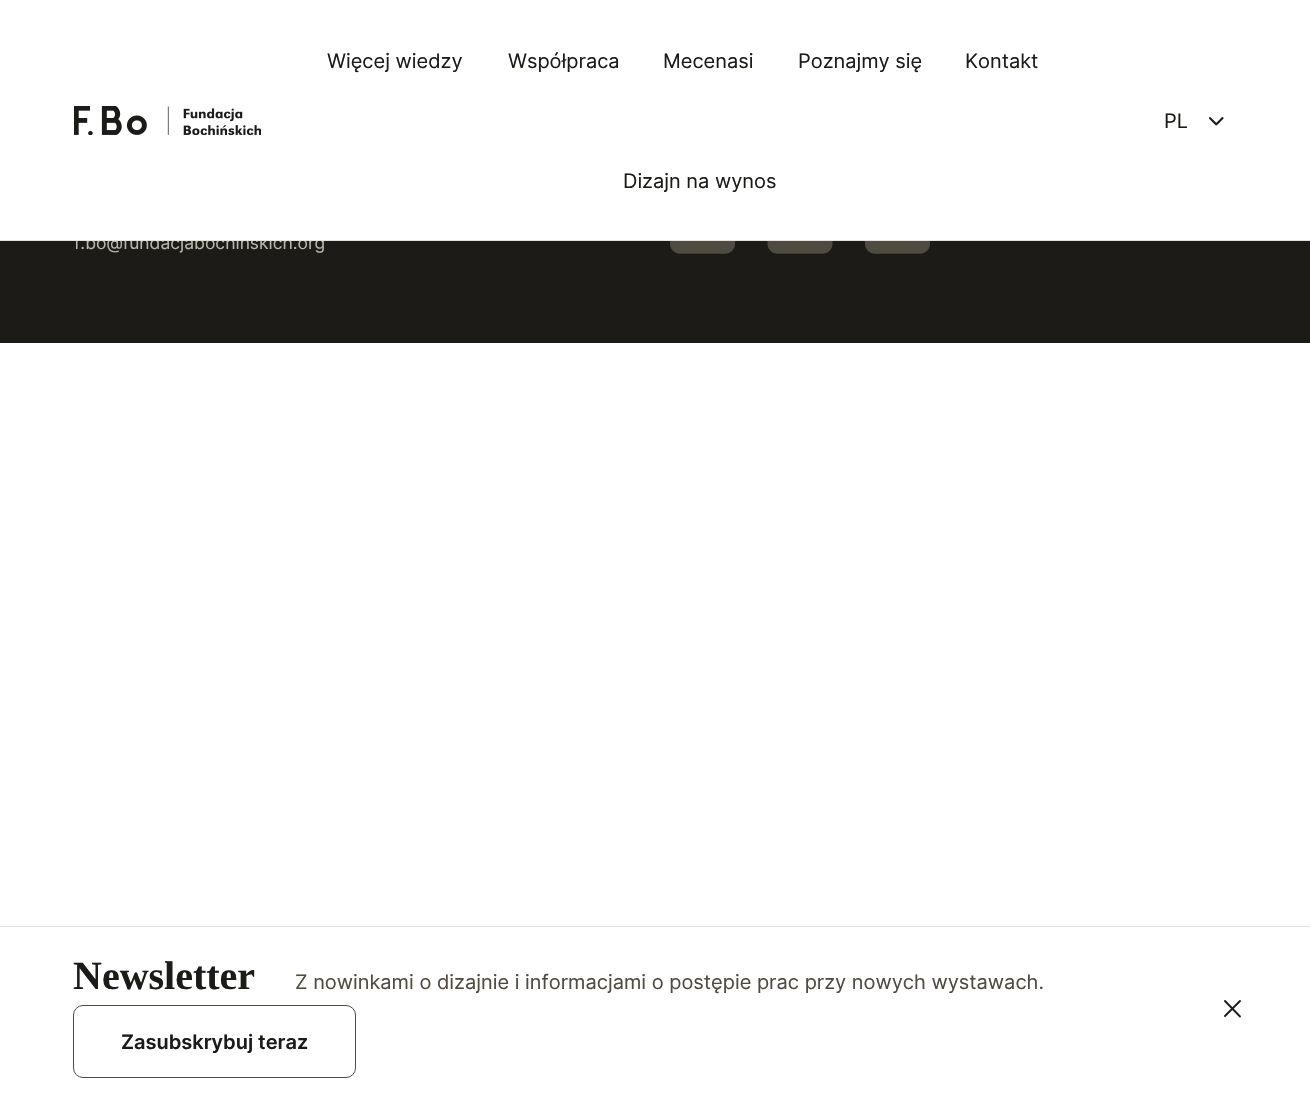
#include "include/core/SkBlurTypes.h"
#include "include/core/SkCanvas.h"
#include "include/core/SkData.h"
#include "include/core/SkFont.h"
#include "include/core/SkFontMgr.h"
#include "include/core/SkImage.h"
#include "include/core/SkMaskFilter.h"
#include "include/core/SkPaint.h"
#include "include/core/SkPathBuilder.h"
#include "include/core/SkTextBlob.h"
#include "include/effects/SkDashPathEffect.h"
#include "include/effects/SkGradientShader.h"
#include "include/utils/SkParsePath.h"

extern sk_sp<SkFontMgr> fontMgr;

static SkFont font(const char* family, int weight, float size, bool italic = false) {
    SkFontStyle style(weight, SkFontStyle::kNormal_Width,
        italic ? SkFontStyle::kItalic_Slant : SkFontStyle::kUpright_Slant);
    SkFont result(fontMgr->matchFamilyStyle(family, style), size);
    result.setSubpixel(true);
    return result;
}

static void drawLabel(SkCanvas* canvas, const char* s, float x, float y, const SkFont& font, SkColor color) {
    SkPaint ink(SkColor4f::FromColor(color));
    ink.setAntiAlias(true);
    canvas->drawString(s, x, y, font, ink);
}

static void fillRect(SkCanvas* canvas, float x, float y, float w, float h, SkColor color) {
    SkPaint ink(SkColor4f::FromColor(color));
    ink.setAntiAlias(true);
    canvas->drawRect(SkRect::MakeXYWH(x, y, w, h), ink);
}

static void drawPhoto(SkCanvas* canvas, const char* path, float x, float y, float w, float h) {
    auto image = SkImages::DeferredFromEncodedData(SkData::MakeFromFileName(path));
    canvas->drawImageRect(image, SkRect::MakeXYWH(x, y, w, h), SkSamplingOptions());
}

static SkPath parsePath(const char* data, bool evenOdd = false) {
    SkPath result = *SkParsePath::FromSVGString(data);
    if (evenOdd) result.setFillType(SkPathFillType::kEvenOdd);
    return result;
}

void draw(SkCanvas* canvas) {
    SkPaint paint;
    paint.setAntiAlias(true);
    canvas->clear(0xFFFFFFFF);
    fillRect(canvas, 0, 241, 1310, 102, 0xFF1C1B17);
    SkFont font1 = font("Inter", 400, 17.5f);
    drawLabel(canvas, "f.bo@fundacjabochinskich.org", 74, 249, font1, 0xFFBAB7AB);
    fillRect(canvas, 74, 235, 250, 5, 0xFFFFFFFF);
    fillRect(canvas, 0, 240, 1310, 1, 0xFFE3E2DD);
    drawPhoto(canvas, "assets/img1.png", 74, 106, 187, 29);
    SkFont font2 = font("Inter", 400, 20);
    drawLabel(canvas, "Więcej wiedzy", 327, 68, font2, 0xFF1C1B17);
    drawLabel(canvas, "Współpraca", 508, 68, font2, 0xFF1C1B17);
    drawLabel(canvas, "Mecenasi", 663, 68, font2, 0xFF1C1B17);
    drawLabel(canvas, "Poznajmy się", 798, 68, font2, 0xFF1C1B17);
    drawLabel(canvas, "Kontakt", 965, 68, font2, 0xFF1C1B17);
    drawLabel(canvas, "Dizajn na wynos", 623, 188, font2, 0xFF1C1B17);
    drawPhoto(canvas, "assets/img2.png", 1209, 117, 15, 9);
    drawLabel(canvas, "PL", 1164, 128, font2, 0xFF1C1B17);
    drawPhoto(canvas, "assets/img3.png", 670, 241, 65, 13);
    drawPhoto(canvas, "assets/img4.png", 767, 241, 66, 13);
    drawPhoto(canvas, "assets/img3.png", 865, 241, 65, 13);
    fillRect(canvas, 0, 926, 1310, 1, 0xFFE3E2DD);
    SkFont font3 = font("Liberation Serif", 700, 40);
    drawLabel(canvas, "Newsletter", 73, 989, font3, 0xFF1C1B17);
    drawLabel(canvas, "Z nowinkami o dizajnie i informacjami o postępie prac przy nowych wystawach.", 295, 989, font2, 0xFF4F4B40);
    paint.setStroke(true);
    paint.setStrokeWidth(1.9f);
    paint.setStrokeCap(SkPaint::kRound_Cap);
    paint.setColor(0xFF1C1B17);
    canvas->drawPath(parsePath("M1225 1001L1240 1016.5M1240 1001L1225 1016"), paint);
    paint.setStrokeWidth(1);
    paint.setStrokeCap(SkPaint::kButt_Cap);
    paint.setColor(0xFF4F4B40);
    canvas->drawRoundRect(SkRect::MakeXYWH(73.5f, 1005.5f, 282, 72), 9.5f, 9.5f, paint);
    SkFont font4 = font("Inter", 600, 20);
    drawLabel(canvas, "Zasubskrybuj teraz", 121, 1049, font4, 0xFF1C1B17);
}
